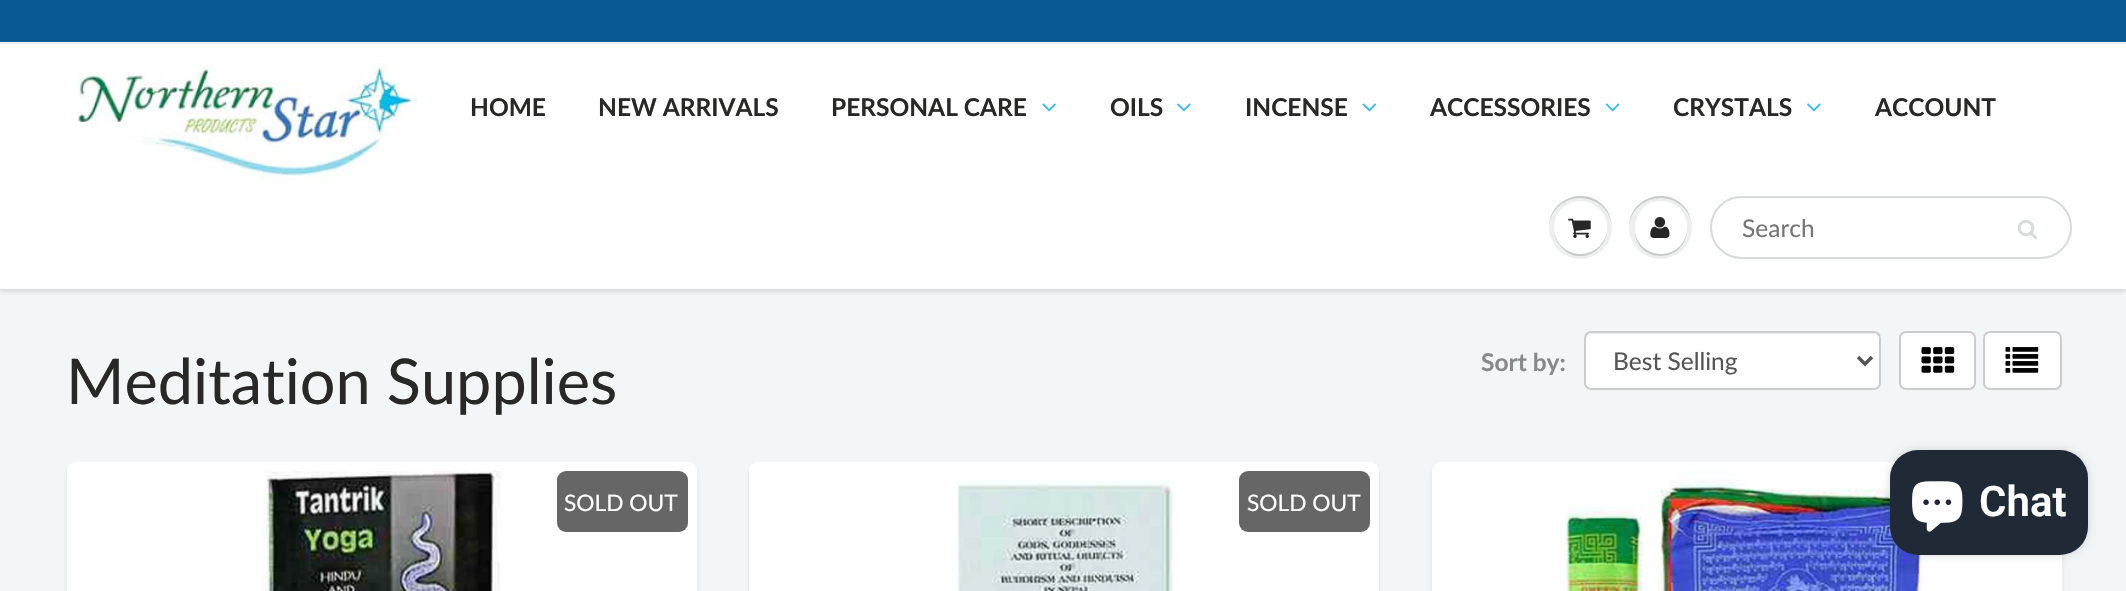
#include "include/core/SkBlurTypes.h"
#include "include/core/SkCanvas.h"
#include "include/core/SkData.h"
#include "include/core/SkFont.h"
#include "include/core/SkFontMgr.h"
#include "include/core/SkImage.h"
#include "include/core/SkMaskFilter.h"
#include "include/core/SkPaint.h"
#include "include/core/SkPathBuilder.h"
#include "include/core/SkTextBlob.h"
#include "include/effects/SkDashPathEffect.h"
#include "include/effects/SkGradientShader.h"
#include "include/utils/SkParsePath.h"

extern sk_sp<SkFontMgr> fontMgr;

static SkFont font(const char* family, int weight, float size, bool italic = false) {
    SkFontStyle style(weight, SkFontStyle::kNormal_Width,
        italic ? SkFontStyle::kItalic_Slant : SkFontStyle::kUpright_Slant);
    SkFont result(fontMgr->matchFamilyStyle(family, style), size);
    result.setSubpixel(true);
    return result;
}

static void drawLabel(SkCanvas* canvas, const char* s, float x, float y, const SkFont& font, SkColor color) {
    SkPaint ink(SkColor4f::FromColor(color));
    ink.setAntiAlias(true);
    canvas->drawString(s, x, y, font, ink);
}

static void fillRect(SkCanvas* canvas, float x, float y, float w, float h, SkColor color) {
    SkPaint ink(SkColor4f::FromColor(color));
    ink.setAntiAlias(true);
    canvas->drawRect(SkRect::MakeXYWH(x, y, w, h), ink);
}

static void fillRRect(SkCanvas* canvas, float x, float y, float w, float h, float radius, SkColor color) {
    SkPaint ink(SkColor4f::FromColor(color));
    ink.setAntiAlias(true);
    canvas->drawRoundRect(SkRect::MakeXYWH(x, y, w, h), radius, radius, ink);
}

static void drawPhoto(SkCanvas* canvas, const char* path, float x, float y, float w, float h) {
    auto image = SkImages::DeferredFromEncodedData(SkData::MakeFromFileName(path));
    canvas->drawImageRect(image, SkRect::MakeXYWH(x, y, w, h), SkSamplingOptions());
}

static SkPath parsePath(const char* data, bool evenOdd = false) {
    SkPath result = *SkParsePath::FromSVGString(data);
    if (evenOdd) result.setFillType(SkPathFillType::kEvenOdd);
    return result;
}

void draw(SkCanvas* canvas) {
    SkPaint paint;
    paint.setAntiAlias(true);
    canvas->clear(0xFF085A93);
    fillRect(canvas, 0, 289, 2126, 302, 0xFFF3F6F6);
    paint.setColor(0x1F0B191C);
    paint.setMaskFilter(SkMaskFilter::MakeBlur(kNormal_SkBlurStyle, 2));
    canvas->drawRect(SkRect::MakeXYWH(0, 46, 2126, 246), paint);
    paint.setMaskFilter(nullptr);
    fillRect(canvas, 0, 44, 2126, 245, 0xFFFFFFFF);
    fillRect(canvas, 0, 42, 2126, 2, 0xFFECEFEF);
    drawPhoto(canvas, "assets/img1.png", 77, 63, 340, 118);
    SkFont font1 = font("Lato", 700, 24.5f);
    drawLabel(canvas, "HOME", 470, 116, font1, 0xFF282827);
    drawLabel(canvas, "NEW ARRIVALS", 598, 116, font1, 0xFF282827);
    drawLabel(canvas, "PERSONAL CARE", 831, 116, font1, 0xFF282827);
    drawPhoto(canvas, "assets/img2.png", 1042, 103, 14, 9);
    drawLabel(canvas, "OILS", 1110, 116, font1, 0xFF282827);
    drawPhoto(canvas, "assets/img3.png", 1177, 103, 14, 9);
    drawLabel(canvas, "INCENSE", 1245, 116, font1, 0xFF282827);
    drawPhoto(canvas, "assets/img4.png", 1362, 103, 15, 9);
    drawLabel(canvas, "ACCESSORIES", 1430, 116, font1, 0xFF282827);
    drawPhoto(canvas, "assets/img5.png", 1605, 103, 15, 9);
    drawLabel(canvas, "CRYSTALS", 1673, 116, font1, 0xFF282827);
    drawPhoto(canvas, "assets/img3.png", 1807, 103, 14, 9);
    drawLabel(canvas, "ACCOUNT", 1875, 116, font1, 0xFF282827);
    paint.setColor(0xFFEDEFEF);
    canvas->drawCircle(1580.5f, 227.5f, 31.5f, paint);
    paint.setColor(0xFFC9CBCB);
    canvas->drawPath(parsePath("M1580 198C1598 198 1612 212 1612 228C1612 222 1610 215 1607 210C1589 184 1548 197 1549 228C1549 212 1563 198 1580 198Z"), paint);
    canvas->drawPath(parsePath("M1554 228C1554 234 1555 240 1559 244C1576 270 1614 250 1606 222C1611 247 1581 264 1562 246C1557 242 1554 235 1554 228Z"), paint);
    paint.setColor(0xFFFFFFFF);
    canvas->drawCircle(1580.5f, 227.5f, 26.5f, paint);
    canvas->drawPath(parsePath("M1580 203C1600 203 1611 223 1604 240C1618 214 1584 187 1562 209C1557 214 1554 221 1554 228C1554 215 1566 203 1580 203Z"), paint);
    drawPhoto(canvas, "assets/img6.png", 1568, 218, 23, 20);
    paint.setColor(0xFFEDEFEF);
    canvas->drawCircle(1660.5f, 227.5f, 31.5f, paint);
    paint.setColor(0xFFC9CBCB);
    canvas->drawPath(parsePath("M1661 198C1678 198 1692 212 1692 228C1692 222 1690 215 1687 210C1669 184 1628 197 1629 228C1629 212 1643 198 1661 198ZM1635 234C1640 266 1688 262 1687 228C1686 258 1643 263 1635 234Z"), paint);
    fillRRect(canvas, 1635, 201, 52, 53, 26, 0xFFFFFFFF);
    paint.setColor(0xFFFFFFFF);
    canvas->drawPath(parsePath("M1661 203C1675 203 1687 215 1687 229C1688 199 1647 190 1637 218C1641 209 1650 203 1661 203Z"), paint);
    drawPhoto(canvas, "assets/img7.png", 1650, 217, 20, 21);
    paint.setStroke(true);
    paint.setStrokeWidth(2);
    paint.setColor(0xFFD7DBDB);
    canvas->drawRoundRect(SkRect::MakeXYWH(1711, 197, 360, 61), 30.5f, 30.5f, paint);
    SkFont font2 = font("Lato", 400, 24.5f);
    drawLabel(canvas, "Search", 1742, 237, font2, 0xFF757575);
    drawPhoto(canvas, "assets/img8.png", 2017, 219, 21, 21);
    SkFont font3 = font("Lato", 400, 63);
    drawLabel(canvas, "Meditation Supplies", 66, 404, font3, 0xFF282827);
    drawLabel(canvas, "Sort by:", 1481, 371, font1, 0xFF898989);
    fillRRect(canvas, 1584, 331, 297, 59, 7, 0xFFFFFFFF);
    paint.setStroke(false);
    paint.setColor(0xFFECECEC);
    canvas->drawPath(parsePath("M1591 334H1874C1877 334 1880 337 1880 340C1880 337 1879 333 1875 333H1590C1586 334 1586 337 1586 340C1586 337 1588 334 1591 334Z"), paint);
    paint.setStroke(true);
    paint.setColor(0xFFCCCCCC);
    canvas->drawRoundRect(SkRect::MakeXYWH(1585, 332, 295, 57), 6, 6, paint);
    paint.setStrokeWidth(3.5f);
    paint.setColor(0xFF555555);
    canvas->drawPath(parsePath("M1858 357L1865 364L1872 357"), paint);
    drawLabel(canvas, "Best Selling", 1613, 370, font2, 0xFF555555);
    paint.setStroke(false);
    paint.setColor(0xFFFFFFFF);
    canvas->drawRoundRect(SkRect::MakeXYWH(1900, 332, 75, 57), 6, 6, paint);
    paint.setStroke(true);
    paint.setStrokeWidth(2);
    paint.setColor(0xFFCCCCCC);
    canvas->drawRoundRect(SkRect::MakeXYWH(1900, 332, 75, 57), 6, 6, paint);
    drawPhoto(canvas, "assets/img9.png", 1921, 347, 34, 26);
    paint.setStroke(false);
    paint.setColor(0xFFFFFFFF);
    canvas->drawRoundRect(SkRect::MakeXYWH(1984, 332, 77, 57), 6, 6, paint);
    paint.setStroke(true);
    paint.setColor(0xFFCCCCCC);
    canvas->drawRoundRect(SkRect::MakeXYWH(1984, 332, 77, 57), 6, 6, paint);
    drawPhoto(canvas, "assets/img10.png", 2005, 347, 34, 26);
    paint.setStroke(false);
    paint.setColor(0x1A0B191C);
    paint.setMaskFilter(SkMaskFilter::MakeBlur(kNormal_SkBlurStyle, 2));
    canvas->drawRoundRect(SkRect::MakeXYWH(67, 466, 630, 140), 9, 9, paint);
    paint.setMaskFilter(nullptr);
    paint.setColor(0xFFFFFFFF);
    canvas->drawRoundRect(SkRect::MakeXYWH(71.5f, 466.5f, 621, 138), 4.5f, 4.5f, paint);
    paint.setStroke(true);
    paint.setStrokeWidth(9);
    canvas->drawRoundRect(SkRect::MakeXYWH(71.5f, 466.5f, 621, 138), 4.5f, 4.5f, paint);
    drawPhoto(canvas, "assets/img11.png", 261, 471, 241, 120);
    fillRRect(canvas, 557, 471, 131, 61, 9, 0xFF666666);
    SkFont font4 = font("Lato", 400, 22.75f);
    drawLabel(canvas, "SOLD OUT", 564, 511, font4, 0xFFFFFFFF);
    paint.setStroke(false);
    paint.setColor(0x1A0B191C);
    paint.setMaskFilter(SkMaskFilter::MakeBlur(kNormal_SkBlurStyle, 2));
    canvas->drawRoundRect(SkRect::MakeXYWH(749, 466, 630, 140), 9, 9, paint);
    paint.setMaskFilter(nullptr);
    paint.setColor(0xFFFFFFFF);
    canvas->drawRoundRect(SkRect::MakeXYWH(753.5f, 466.5f, 621, 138), 4.5f, 4.5f, paint);
    paint.setStroke(true);
    canvas->drawRoundRect(SkRect::MakeXYWH(753.5f, 466.5f, 621, 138), 4.5f, 4.5f, paint);
    drawPhoto(canvas, "assets/img12.png", 957, 480, 218, 111);
    fillRRect(canvas, 1239, 471, 131, 61, 9, 0xFF666666);
    drawLabel(canvas, "SOLD OUT", 1247, 511, font4, 0xFFFFFFFF);
    paint.setStroke(false);
    paint.setColor(0x1A0B191C);
    paint.setMaskFilter(SkMaskFilter::MakeBlur(kNormal_SkBlurStyle, 2));
    canvas->drawRoundRect(SkRect::MakeXYWH(1432, 466, 630, 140), 9, 9, paint);
    paint.setMaskFilter(nullptr);
    paint.setColor(0xFFFFFFFF);
    canvas->drawRoundRect(SkRect::MakeXYWH(1436.5f, 466.5f, 621, 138), 4.5f, 4.5f, paint);
    paint.setStroke(true);
    canvas->drawRoundRect(SkRect::MakeXYWH(1436.5f, 466.5f, 621, 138), 4.5f, 4.5f, paint);
    drawPhoto(canvas, "assets/img13.png", 1564, 471, 379, 120);
    paint.setStroke(false);
    paint.setColor(0x26000000);
    paint.setMaskFilter(SkMaskFilter::MakeBlur(kNormal_SkBlurStyle, 4.5f));
    canvas->drawRoundRect(SkRect::MakeXYWH(1890, 450, 198, 105), 28, 28, paint);
    paint.setMaskFilter(nullptr);
    fillRRect(canvas, 1890, 450, 198, 105, 28, 0xFF202A36);
    drawPhoto(canvas, "assets/img14.png", 1912, 481, 51, 51);
    SkFont font5 = font("Roboto", 600, 42);
    drawLabel(canvas, "Chat", 1979, 516, font5, 0xFFFFFFFF);
}
